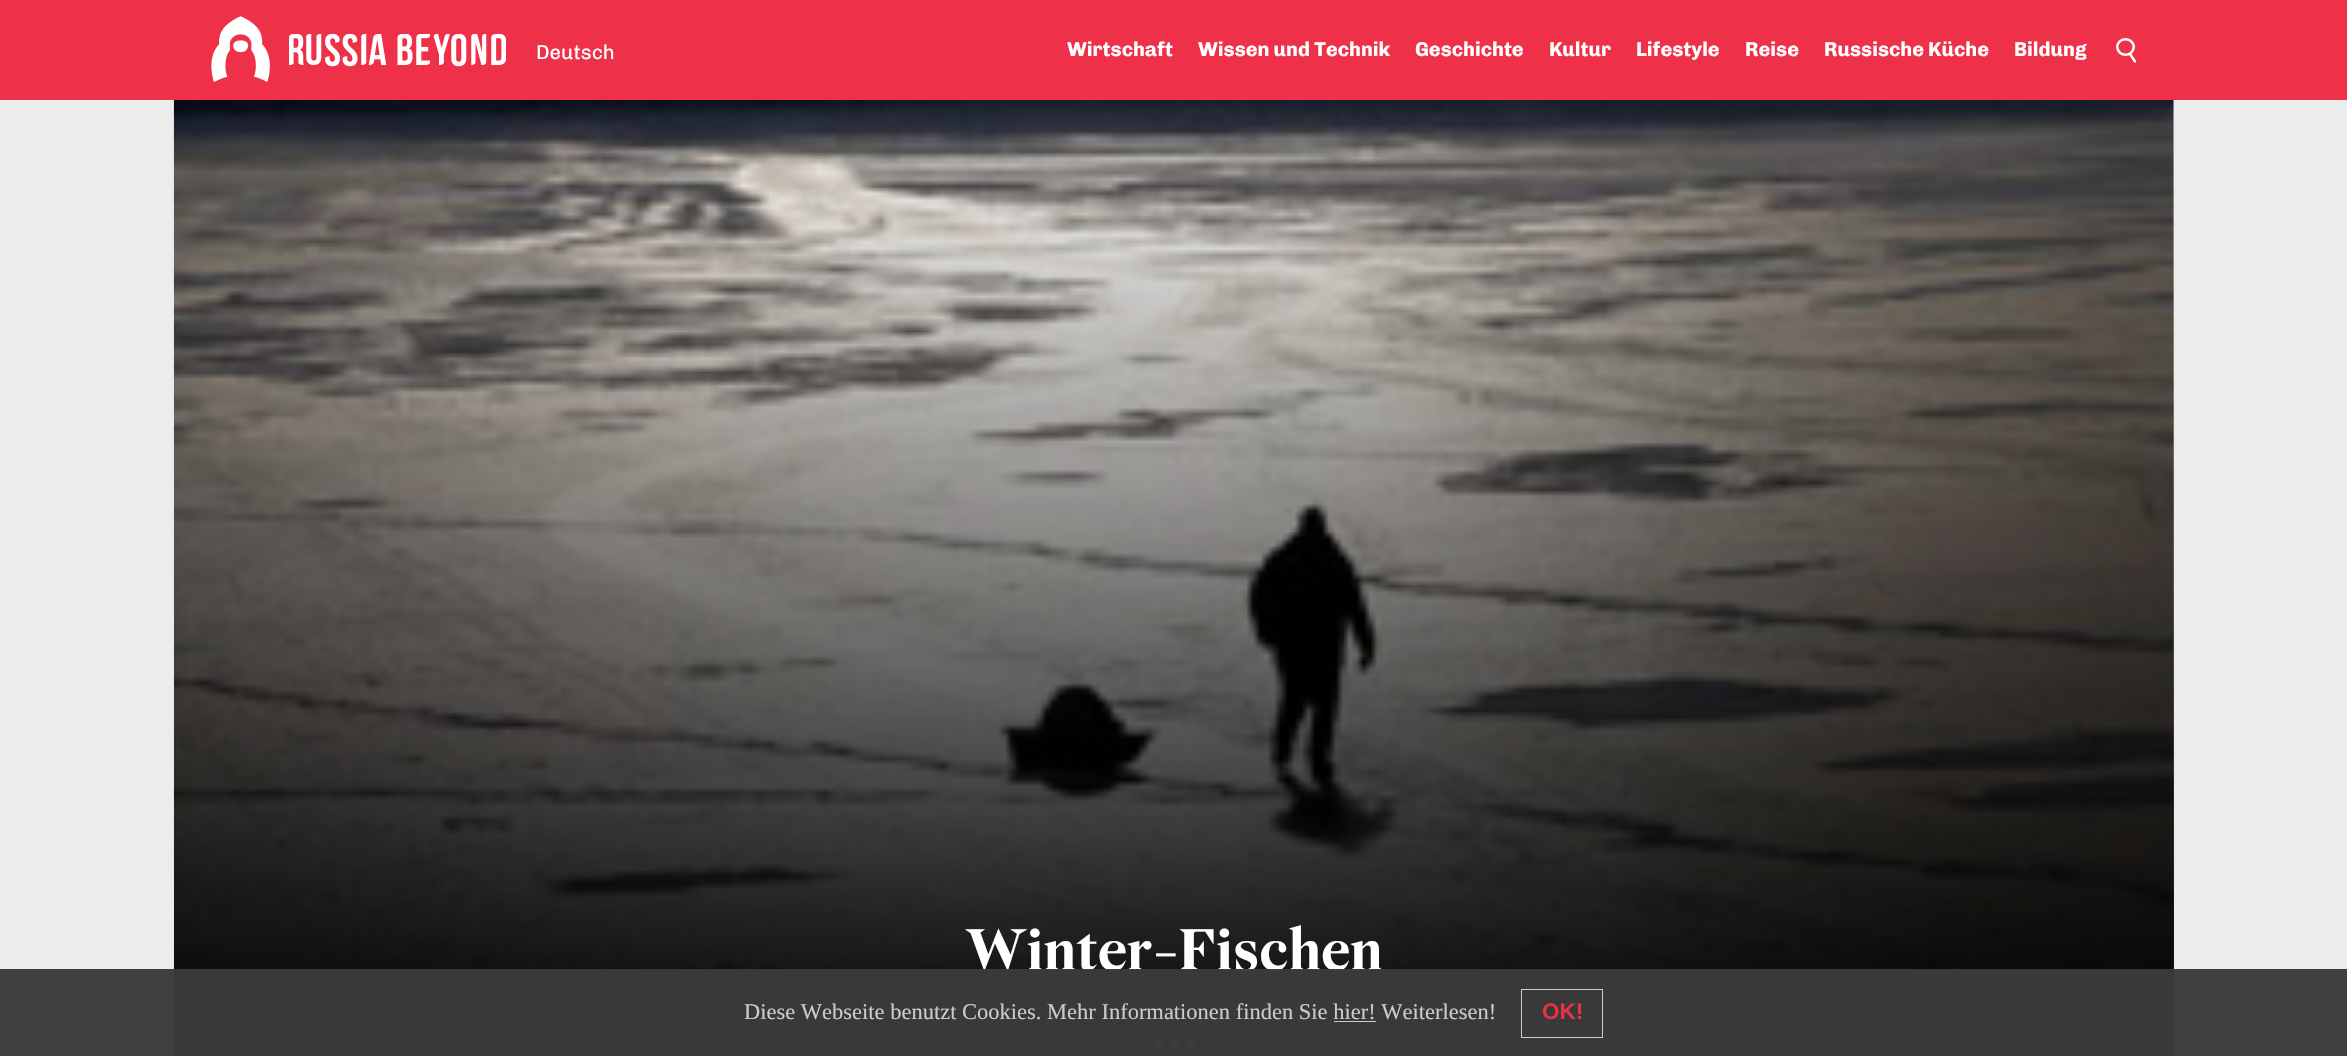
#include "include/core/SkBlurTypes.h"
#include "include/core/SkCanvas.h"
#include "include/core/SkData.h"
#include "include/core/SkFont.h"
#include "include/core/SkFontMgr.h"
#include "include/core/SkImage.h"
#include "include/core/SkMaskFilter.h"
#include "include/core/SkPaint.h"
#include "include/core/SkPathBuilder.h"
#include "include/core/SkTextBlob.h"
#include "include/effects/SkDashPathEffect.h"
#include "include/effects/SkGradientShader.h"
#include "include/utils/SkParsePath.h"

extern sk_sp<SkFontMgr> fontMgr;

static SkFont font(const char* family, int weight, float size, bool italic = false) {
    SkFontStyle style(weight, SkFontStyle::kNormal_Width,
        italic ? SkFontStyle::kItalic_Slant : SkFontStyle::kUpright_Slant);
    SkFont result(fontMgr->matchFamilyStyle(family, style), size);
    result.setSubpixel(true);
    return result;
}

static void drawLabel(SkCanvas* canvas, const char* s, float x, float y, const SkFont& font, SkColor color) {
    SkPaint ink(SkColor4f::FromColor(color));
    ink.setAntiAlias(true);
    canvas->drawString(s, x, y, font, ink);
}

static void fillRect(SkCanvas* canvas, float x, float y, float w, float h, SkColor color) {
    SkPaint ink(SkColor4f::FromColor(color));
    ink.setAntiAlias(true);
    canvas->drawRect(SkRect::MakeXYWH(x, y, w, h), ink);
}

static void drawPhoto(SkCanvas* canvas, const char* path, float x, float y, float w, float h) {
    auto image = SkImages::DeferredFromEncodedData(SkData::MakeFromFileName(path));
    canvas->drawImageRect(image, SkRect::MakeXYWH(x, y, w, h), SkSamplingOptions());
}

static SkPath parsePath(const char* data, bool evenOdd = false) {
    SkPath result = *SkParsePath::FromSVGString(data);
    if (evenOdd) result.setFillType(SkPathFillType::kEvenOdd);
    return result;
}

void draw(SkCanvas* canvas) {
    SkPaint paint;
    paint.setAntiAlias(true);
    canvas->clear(0xFFECECEC);
    fillRect(canvas, 0, 0, 2347, 100, 0xFFEE3048);
    drawPhoto(canvas, "assets/img1.png", 211, 16, 59, 66);
    drawPhoto(canvas, "assets/img2.png", 289, 34, 217, 33);
    SkFont font1 = font("Chivo", 400, 20);
    drawLabel(canvas, "Deutsch", 536, 59, font1, 0xFFFFFFFF);
    SkFont font2 = font("Chivo", 700, 20);
    drawLabel(canvas, "Wirtschaft", 1067, 56, font2, 0xFFFFFFFF);
    drawLabel(canvas, "Wissen und Technik", 1198, 56, font2, 0xFFFFFFFF);
    drawLabel(canvas, "Geschichte", 1415, 56, font2, 0xFFFFFFFF);
    drawLabel(canvas, "Kultur", 1549, 56, font2, 0xFFFFFFFF);
    drawLabel(canvas, "Lifestyle", 1636, 56, font2, 0xFFFFFFFF);
    drawLabel(canvas, "Reise", 1745, 56, font2, 0xFFFFFFFF);
    drawLabel(canvas, "Russische Küche", 1824, 56, font2, 0xFFFFFFFF);
    drawLabel(canvas, "Bildung", 2014, 56, font2, 0xFFFFFFFF);
    fillRect(canvas, 2086, 56, 1, 1, 0xFFEE3048);
    paint.setStroke(true);
    paint.setStrokeWidth(2.5f);
    paint.setColor(0xFFFFFFFF);
    canvas->drawRoundRect(SkRect::MakeXYWH(2117.25f, 39.25f, 16.5f, 15.5f), 7.75f, 7.75f, paint);
    paint.setStrokeCap(SkPaint::kRound_Cap);
    canvas->drawPath(parsePath("M2130 54L2135 61.5"), paint);
    fillRect(canvas, 2173, 100, 1, 956, 0xFFFFFFFF);
    drawPhoto(canvas, "assets/img3.png", 173, 100, 2001, 956);
    paint.setStroke(false);
    {
        const SkColor colors[] = {0x00000000, 0xFF000000};
        const float stops[] = {0, 1};
        const SkPoint ends[] = {{1174, 100}, {1174, 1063}};
        paint.setShader(SkGradientShader::MakeLinear(ends, colors, stops, 2, SkTileMode::kClamp));
        paint.setAlpha(255);
    }
    canvas->drawRect(SkRect::MakeXYWH(174, 121, 2000, 935), paint);
    SkFont font3 = font("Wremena", 700, 62.5f);
    drawLabel(canvas, "Winter-Fischen", 965, 970, font3, 0xFFFFFFFF);
    paint.setShader(nullptr);
    paint.setColor(0xFF000000);
    canvas->drawPath(parsePath("M1144 1031H1203C1207.5 1031 1211 1034.5 1211 1039V1056H1136V1039C1136 1034.5 1139.5 1031 1144 1031Z"), paint);
    paint.setColor(0xFFEE3048);
    canvas->drawCircle(1159.5f, 1044.5f, 4.5f, paint);
    canvas->drawCircle(1174.5f, 1044.5f, 4.5f, paint);
    canvas->drawCircle(1189.5f, 1044.5f, 4.5f, paint);
    fillRect(canvas, 0, 969, 2347, 87, 0xF73A3A3A);
    SkFont font4 = font("Liberation Serif", 400, 22.5f);
    drawLabel(canvas, "Diese Webseite benutzt Cookies. Mehr Informationen finden Sie hier! Weiterlesen!", 744, 1019, font4, 0xFFCCCCCC);
    fillRect(canvas, 1334, 1021, 42, 1, 0xFFCBCBCB);
    paint.setStroke(true);
    paint.setStrokeWidth(1);
    paint.setStrokeCap(SkPaint::kButt_Cap);
    paint.setColor(0xFFCCCCCC);
    canvas->drawRect(SkRect::MakeXYWH(1521.5f, 989.5f, 81, 48), paint);
    SkFont font5 = font("Liberation Sans", 700, 22.5f);
    drawLabel(canvas, "OK!", 1542, 1019, font5, 0xFFE93048);
}
